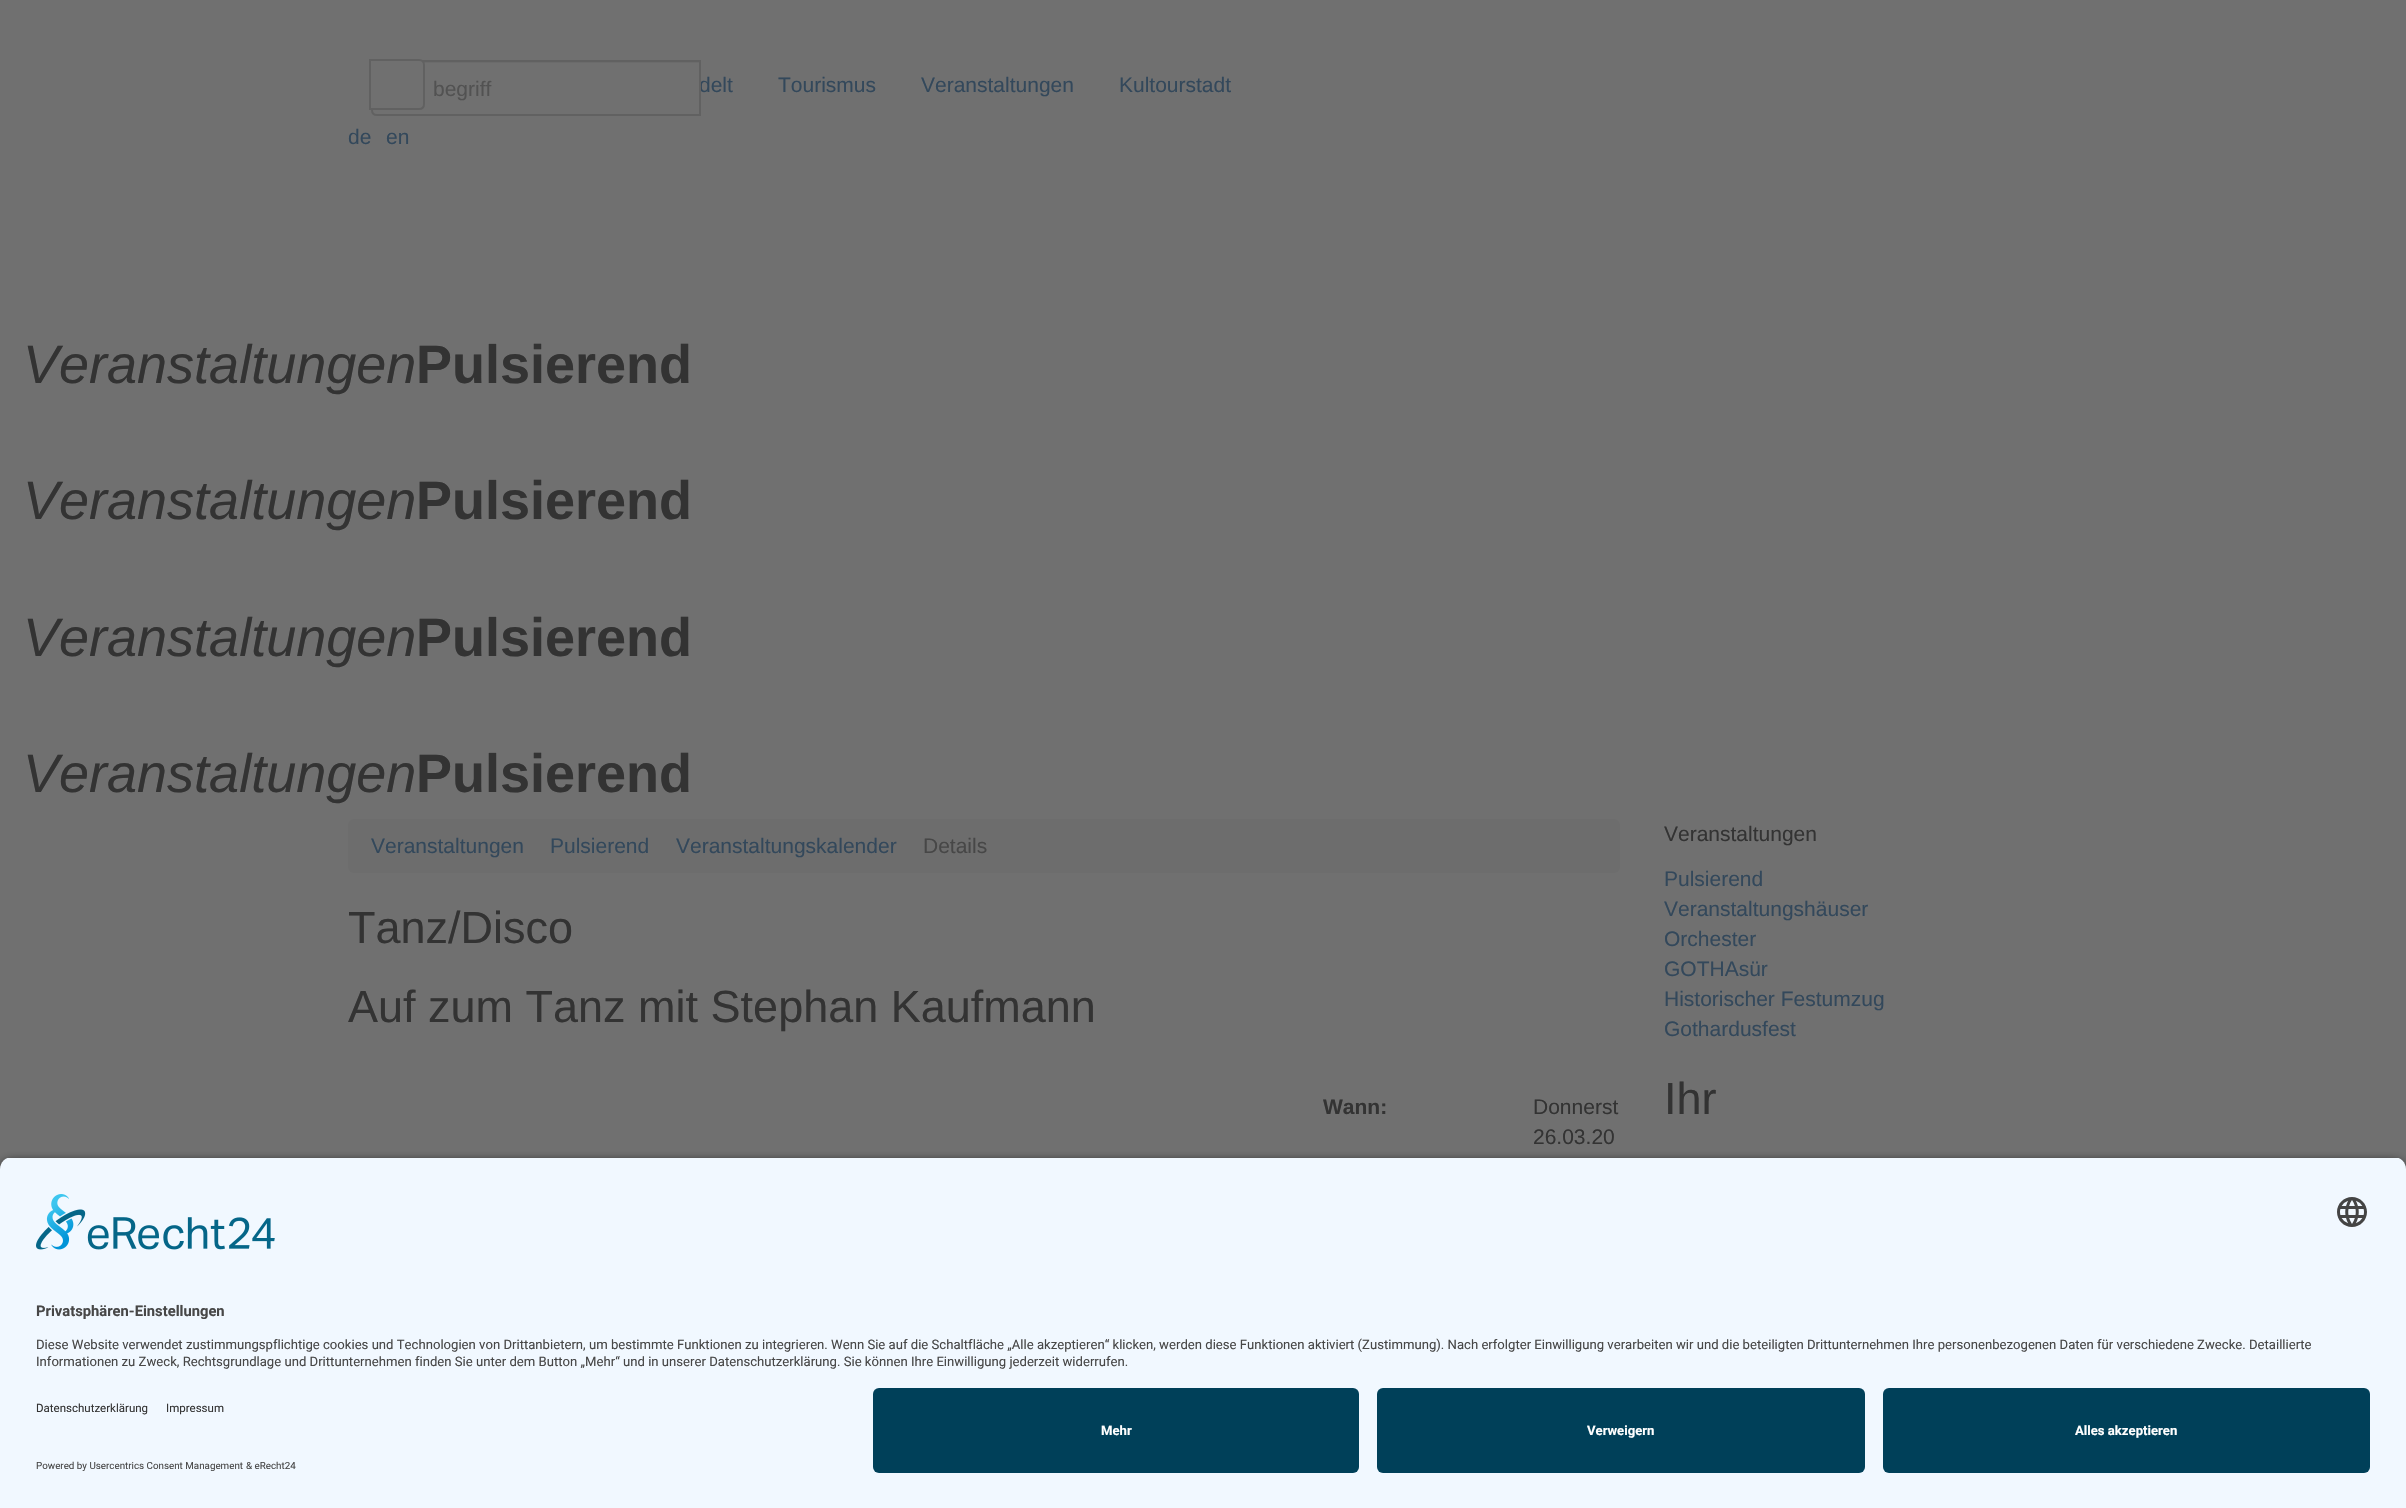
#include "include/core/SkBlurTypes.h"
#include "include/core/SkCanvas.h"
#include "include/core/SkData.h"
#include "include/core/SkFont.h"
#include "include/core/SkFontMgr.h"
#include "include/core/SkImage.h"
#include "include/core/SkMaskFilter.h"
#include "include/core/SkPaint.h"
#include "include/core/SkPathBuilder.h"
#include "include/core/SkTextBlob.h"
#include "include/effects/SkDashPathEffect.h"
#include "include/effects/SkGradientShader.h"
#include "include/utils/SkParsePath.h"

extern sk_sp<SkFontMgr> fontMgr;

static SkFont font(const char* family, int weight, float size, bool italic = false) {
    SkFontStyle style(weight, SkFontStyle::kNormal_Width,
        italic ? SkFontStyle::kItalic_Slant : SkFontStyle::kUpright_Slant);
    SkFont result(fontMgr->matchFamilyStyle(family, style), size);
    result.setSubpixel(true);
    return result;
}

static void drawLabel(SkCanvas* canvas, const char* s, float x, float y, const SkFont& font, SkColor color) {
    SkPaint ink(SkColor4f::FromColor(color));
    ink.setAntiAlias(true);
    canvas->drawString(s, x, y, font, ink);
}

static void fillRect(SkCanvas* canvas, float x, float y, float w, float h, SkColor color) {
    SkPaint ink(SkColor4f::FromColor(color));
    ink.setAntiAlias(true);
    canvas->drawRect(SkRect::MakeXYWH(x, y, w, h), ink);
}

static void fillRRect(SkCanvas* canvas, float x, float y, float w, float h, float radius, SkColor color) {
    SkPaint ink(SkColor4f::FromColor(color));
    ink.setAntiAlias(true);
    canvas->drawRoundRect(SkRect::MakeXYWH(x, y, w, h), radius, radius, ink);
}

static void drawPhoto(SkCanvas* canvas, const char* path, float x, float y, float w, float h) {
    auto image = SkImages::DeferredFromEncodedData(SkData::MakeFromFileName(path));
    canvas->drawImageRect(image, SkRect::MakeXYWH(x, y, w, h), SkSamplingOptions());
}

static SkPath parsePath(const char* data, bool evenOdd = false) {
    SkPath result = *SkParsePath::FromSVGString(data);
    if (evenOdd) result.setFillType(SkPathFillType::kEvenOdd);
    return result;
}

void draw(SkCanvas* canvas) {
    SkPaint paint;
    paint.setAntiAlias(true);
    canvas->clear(0xFF707070);
    SkFont font1 = font("Liberation Sans", 400, 21);
    drawLabel(canvas, "delt", 699, 92, font1, 0xFF33485B);
    paint.setColor(0xFF707070);
    canvas->drawPath(parsePath("M377 60H701V116H377C373.5 116 371 113.5 371 110V66C371 62.5 373.5 60 377 60Z"), paint);
    paint.setColor(0xFF6B6B6B);
    canvas->drawPath(parsePath("M376 63H699V62H377C374 62 372 65 372 68C372 65 374 63 376 63Z"), paint);
    paint.setStroke(true);
    paint.setStrokeWidth(2);
    paint.setColor(0xFF616161);
    canvas->drawPath(parsePath("M377 61H700V115H377C374 115 372 113 372 110V66C372 63 374 61 377 61Z"), paint);
    paint.setStroke(false);
    paint.setColor(0xFF707070);
    canvas->drawPath(parsePath("M370 60H419C422 60 424 62 424 65V104C424 107 422 109 419 109H370Z"), paint);
    paint.setStroke(true);
    paint.setColor(0xFF616161);
    canvas->drawPath(parsePath("M370 60H419C422 60 424 62 424 65V104C424 107 422 109 419 109H370Z"), paint);
    drawLabel(canvas, "begriff", 433, 96, font1, 0xFF525252);
    drawLabel(canvas, "de", 348, 144, font1, 0xFF33485B);
    drawLabel(canvas, "en", 386, 144, font1, 0xFF33485B);
    drawLabel(canvas, "Tourismus", 778, 92, font1, 0xFF33485B);
    drawLabel(canvas, "Veranstaltungen", 921, 92, font1, 0xFF33485B);
    drawLabel(canvas, "Kultourstadt", 1119, 92, font1, 0xFF33485B);
    SkFont font2 = font("Liberation Sans", 400, 54, true);
    drawLabel(canvas, "Veranstaltungen", 23, 383, font2, 0xFF333333);
    SkFont font3 = font("Liberation Sans", 700, 54);
    drawLabel(canvas, "Pulsierend", 416, 383, font3, 0xFF333333);
    drawLabel(canvas, "Veranstaltungen", 23, 519, font2, 0xFF333333);
    drawLabel(canvas, "Pulsierend", 416, 519, font3, 0xFF333333);
    drawLabel(canvas, "Veranstaltungen", 23, 656, font2, 0xFF333333);
    drawLabel(canvas, "Pulsierend", 416, 656, font3, 0xFF333333);
    drawLabel(canvas, "Veranstaltungen", 23, 792, font2, 0xFF333333);
    drawLabel(canvas, "Pulsierend", 416, 792, font3, 0xFF333333);
    fillRRect(canvas, 348, 819, 1272, 54, 6, 0xFF6D6D6D);
    drawLabel(canvas, "Veranstaltungen", 371, 853, font1, 0xFF33485B);
    drawLabel(canvas, "Pulsierend", 550, 853, font1, 0xFF33485B);
    drawLabel(canvas, "Veranstaltungskalender", 676, 853, font1, 0xFF33485B);
    drawLabel(canvas, "Details", 923, 853, font1, 0xFF474747);
    SkFont font4 = font("Liberation Sans", 400, 45);
    drawLabel(canvas, "Tanz/Disco", 348, 943, font4, 0xFF333333);
    drawLabel(canvas, "Auf zum Tanz mit Stephan Kaufmann", 348, 1022, font4, 0xFF333333);
    SkFont font5 = font("Liberation Sans", 700, 21);
    drawLabel(canvas, "Wann:", 1323, 1114, font5, 0xFF333333);
    drawLabel(canvas, "Donnerst", 1533, 1114, font1, 0xFF333333);
    drawLabel(canvas, "26.03.20", 1533, 1144, font1, 0xFF333333);
    drawLabel(canvas, "Veranstaltungen", 1664, 841, font1, 0xFF333333);
    drawLabel(canvas, "Pulsierend", 1664, 886, font1, 0xFF33485B);
    drawLabel(canvas, "Veranstaltungshäuser", 1664, 916, font1, 0xFF33485B);
    drawLabel(canvas, "Orchester", 1664, 946, font1, 0xFF33485B);
    drawLabel(canvas, "GOTHAsür", 1664, 976, font1, 0xFF33485B);
    drawLabel(canvas, "Historischer Festumzug", 1664, 1006, font1, 0xFF33485B);
    drawLabel(canvas, "Gothardusfest", 1664, 1036, font1, 0xFF33485B);
    drawLabel(canvas, "Ihr", 1664, 1114, font4, 0xFF333333);
    paint.setStroke(false);
    paint.setColor(0xCC000000);
    paint.setMaskFilter(SkMaskFilter::MakeBlur(kNormal_SkBlurStyle, 5));
    canvas->drawRoundRect(SkRect::MakeXYWH(0, 1161, 2406, 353), 12, 12, paint);
    paint.setMaskFilter(nullptr);
    canvas->save();
    canvas->clipPath(parsePath("M12 1157H2394C2400.5 1157 2406 1162.5 2406 1169V1376H0V1169C0 1162.5 5.5 1157 12 1157Z"), true);
    fillRect(canvas, 0, 1158, 2406, 218, 0xFFF1F8FF);
    canvas->restore();
    drawPhoto(canvas, "assets/img1.png", 36, 1194, 239, 56);
    drawPhoto(canvas, "assets/img2.png", 2337, 1197, 30, 30);
    SkFont font6 = font("Roboto", 700, 14.75f);
    drawLabel(canvas, "Privatsphären-Einstellungen", 36, 1316, font6, 0xFF474747);
    SkFont font7 = font("Roboto", 400, 13.12f);
    drawLabel(canvas, "Diese Website verwendet zustimmungspflichtige cookies und Technologien von Drittanbietern, um bestimmte Funktionen zu integrieren. Wenn Sie auf die Schaltfläche „Alle akzeptieren“ klicken, werden diese Funktionen aktiviert (Zustimmung). Nach erfolgter Einwilligung verarbeiten wir und die beteiligten Drittunternehmen Ihre personenbezogenen Daten für verschiedene Zwecke. Detaillierte", 36, 1349, font7, 0xFF474747);
    drawLabel(canvas, "Informationen zu Zweck, Rechtsgrundlage und Drittunternehmen finden Sie unter dem Button „Mehr“ und in unserer Datenschutzerklärung. Sie können Ihre Einwilligung jederzeit widerrufen.", 36, 1366, font7, 0xFF474747);
    fillRect(canvas, 0, 1376, 2406, 132, 0xFFF1F8FF);
    SkFont font8 = font("Roboto", 400, 11.5f);
    drawLabel(canvas, "Datenschutzerklärung", 36, 1412, font8, 0xFF333333);
    drawLabel(canvas, "Impressum", 166, 1412, font8, 0xFF333333);
    SkFont font9 = font("Roboto", 400, 9.8f);
    drawLabel(canvas, "Powered by Usercentrics Consent Management", 36, 1469, font9, 0xFF474747);
    drawLabel(canvas, "& eRecht24", 246, 1469, font9, 0xFF474747);
    fillRRect(canvas, 873, 1388, 486, 85, 6, 0xFF004059);
    SkFont font10 = font("Roboto", 700, 13.12f);
    drawLabel(canvas, "Mehr", 1101, 1435, font10, 0xFFFFFFFF);
    fillRRect(canvas, 1377, 1388, 488, 85, 6, 0xFF004059);
    drawLabel(canvas, "Verweigern", 1587, 1435, font10, 0xFFFFFFFF);
    fillRRect(canvas, 1883, 1388, 487, 85, 6, 0xFF004059);
    drawLabel(canvas, "Alles akzeptieren", 2075, 1435, font10, 0xFFFFFFFF);
}
